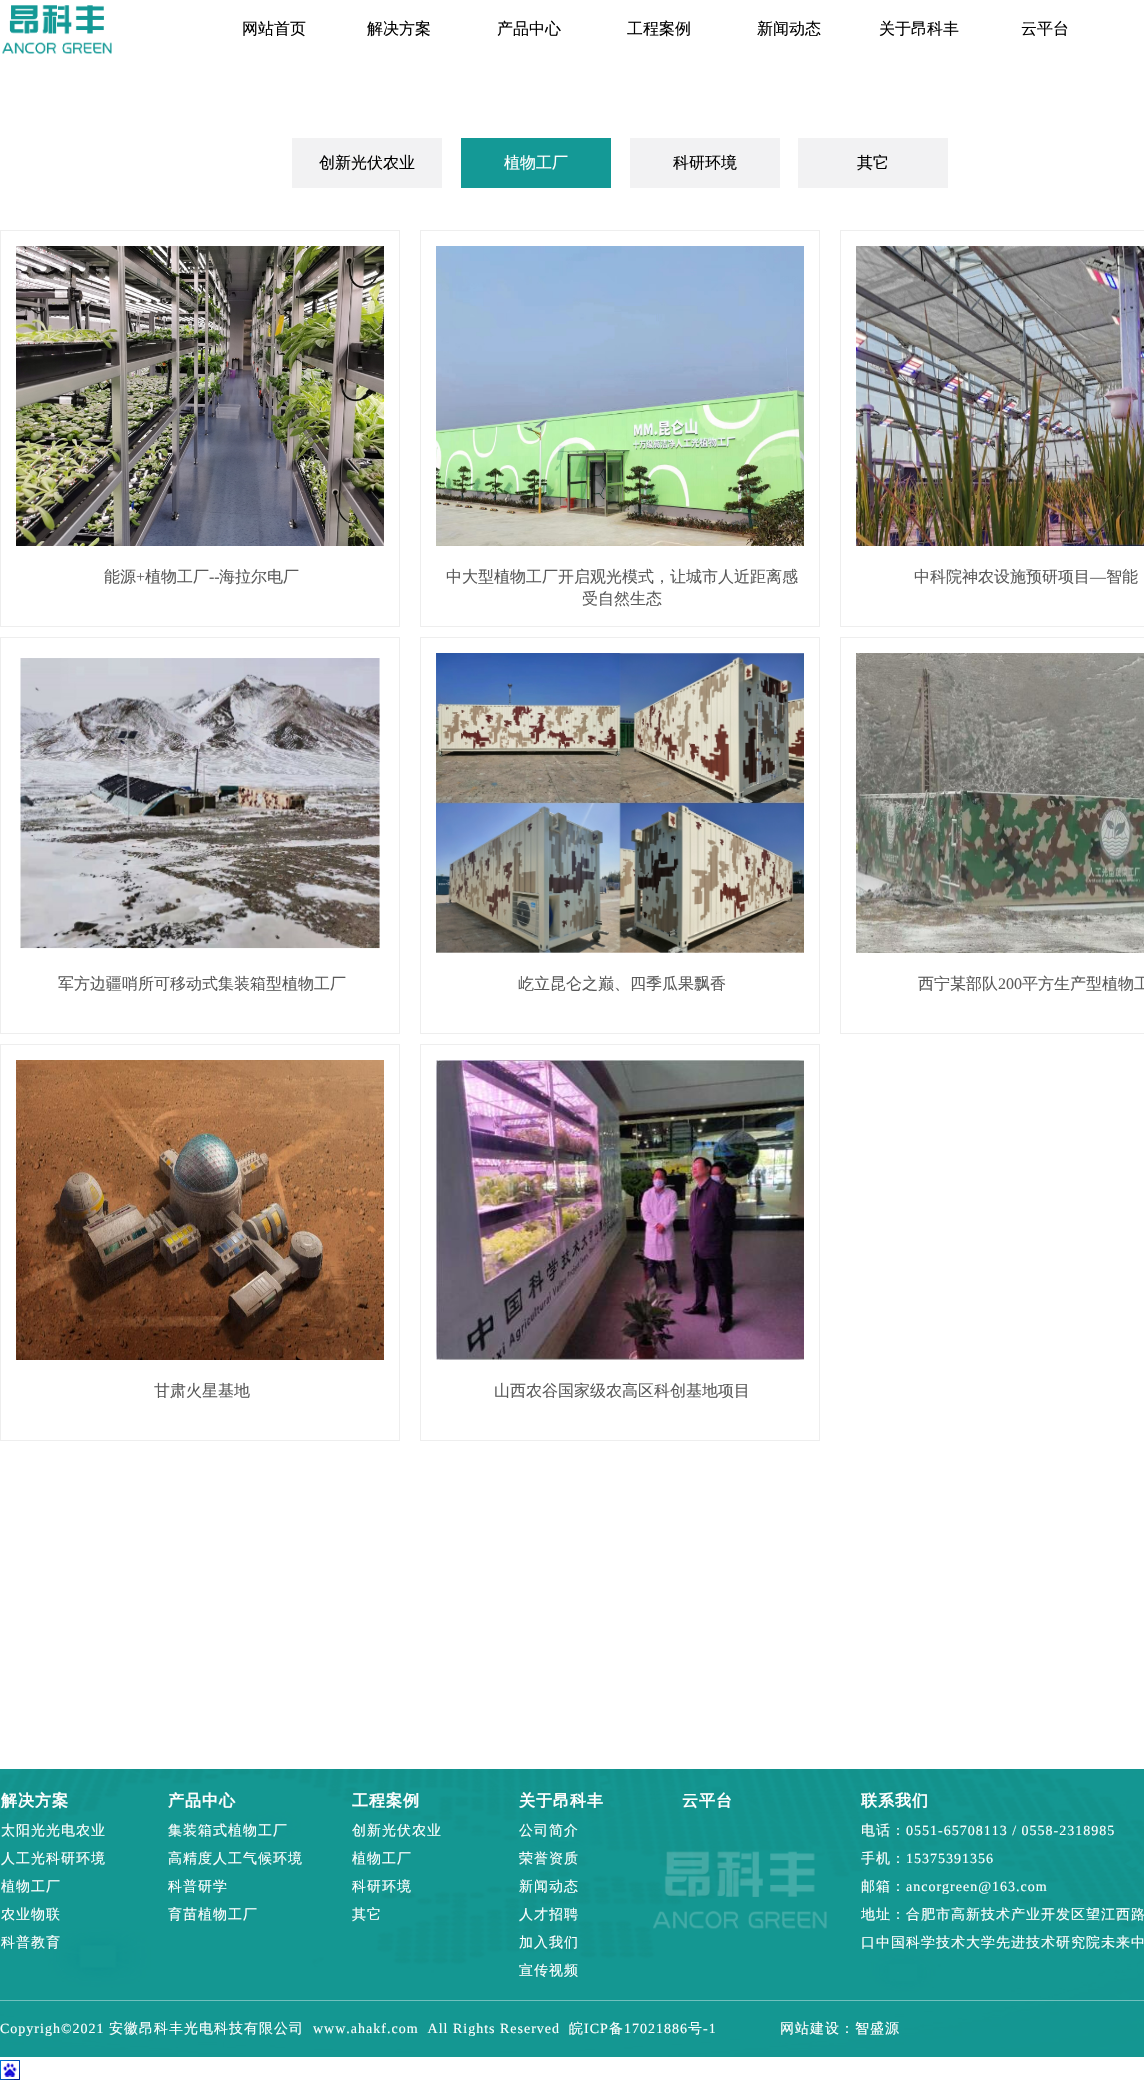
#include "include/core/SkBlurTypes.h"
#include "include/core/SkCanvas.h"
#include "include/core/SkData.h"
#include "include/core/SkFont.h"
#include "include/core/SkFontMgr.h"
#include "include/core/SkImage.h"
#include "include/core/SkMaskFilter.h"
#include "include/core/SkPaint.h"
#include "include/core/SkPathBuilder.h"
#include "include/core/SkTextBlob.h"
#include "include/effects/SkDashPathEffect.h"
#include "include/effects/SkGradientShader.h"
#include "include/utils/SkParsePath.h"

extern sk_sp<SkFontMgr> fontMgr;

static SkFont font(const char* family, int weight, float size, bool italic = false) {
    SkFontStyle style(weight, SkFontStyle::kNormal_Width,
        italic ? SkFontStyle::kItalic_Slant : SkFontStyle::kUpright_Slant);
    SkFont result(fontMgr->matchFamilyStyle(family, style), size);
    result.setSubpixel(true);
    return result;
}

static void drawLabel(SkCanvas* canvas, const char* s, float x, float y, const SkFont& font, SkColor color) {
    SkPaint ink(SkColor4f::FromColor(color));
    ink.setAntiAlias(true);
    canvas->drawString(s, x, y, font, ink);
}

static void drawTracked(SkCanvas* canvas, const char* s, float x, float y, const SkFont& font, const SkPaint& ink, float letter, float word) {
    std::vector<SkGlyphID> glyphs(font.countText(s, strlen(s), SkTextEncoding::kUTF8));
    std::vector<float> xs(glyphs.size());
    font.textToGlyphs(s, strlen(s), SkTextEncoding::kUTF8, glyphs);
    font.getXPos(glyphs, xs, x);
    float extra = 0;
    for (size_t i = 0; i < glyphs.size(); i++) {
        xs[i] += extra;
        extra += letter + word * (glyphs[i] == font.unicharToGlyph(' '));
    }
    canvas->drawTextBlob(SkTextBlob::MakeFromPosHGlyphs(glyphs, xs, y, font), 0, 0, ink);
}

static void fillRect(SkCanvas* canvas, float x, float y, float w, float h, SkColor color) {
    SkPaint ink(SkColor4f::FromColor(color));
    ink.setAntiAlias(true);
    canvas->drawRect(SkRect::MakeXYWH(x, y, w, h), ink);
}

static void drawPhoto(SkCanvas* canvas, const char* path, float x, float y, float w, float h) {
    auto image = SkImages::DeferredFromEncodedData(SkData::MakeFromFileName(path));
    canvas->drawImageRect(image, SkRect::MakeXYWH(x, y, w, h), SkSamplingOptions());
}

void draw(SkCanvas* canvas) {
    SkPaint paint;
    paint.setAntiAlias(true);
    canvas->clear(0xFFFFFFFF);
    drawPhoto(canvas, "assets/img1.png", 2, 5, 110, 50);
    SkFont font1 = font("WenQuanYi Zen Hei", 500, 16);
    drawLabel(canvas, "网站首页", 242, 34, font1, 0xFF000000);
    drawLabel(canvas, "解决方案", 367, 34, font1, 0xFF000000);
    drawLabel(canvas, "产品中心", 497, 34, font1, 0xFF000000);
    drawLabel(canvas, "工程案例", 627, 34, font1, 0xFF000000);
    drawLabel(canvas, "新闻动态", 757, 34, font1, 0xFF000000);
    drawLabel(canvas, "关于昂科丰", 879, 34, font1, 0xFF000000);
    drawLabel(canvas, "云平台", 1021, 34, font1, 0xFF000000);
    fillRect(canvas, 292, 138, 150, 50, 0xFFF2F2F3);
    drawLabel(canvas, "创新光伏农业", 319, 168, font1, 0xFF000000);
    fillRect(canvas, 461, 138, 150, 50, 0xFF149996);
    drawLabel(canvas, "植物工厂", 504, 168, font1, 0xFFFFFFFF);
    fillRect(canvas, 630, 138, 150, 50, 0xFFF2F2F3);
    drawLabel(canvas, "科研环境", 673, 168, font1, 0xFF000000);
    fillRect(canvas, 798, 138, 150, 50, 0xFFF2F2F3);
    drawLabel(canvas, "其它", 857, 168, font1, 0xFF000000);
    paint.setStroke(true);
    paint.setStrokeWidth(1);
    paint.setColor(0xFFEEEEEE);
    canvas->drawRect(SkRect::MakeXYWH(0.5f, 230.5f, 399, 396), paint);
    drawPhoto(canvas, "assets/img2.png", 16, 246, 368, 300);
    drawLabel(canvas, "能源", 104, 582, font1, 0xFF5A5A5A);
    SkFont font2 = font("Liberation Serif", 400, 16);
    drawLabel(canvas, "+", 136, 582, font2, 0xFF5A5A5A);
    drawLabel(canvas, "植物工厂", 145, 582, font1, 0xFF5A5A5A);
    drawLabel(canvas, "--", 209, 582, font2, 0xFF5A5A5A);
    drawLabel(canvas, "海拉尔电厂", 219, 582, font1, 0xFF5A5A5A);
    canvas->drawRect(SkRect::MakeXYWH(420.5f, 230.5f, 399, 396), paint);
    drawPhoto(canvas, "assets/img3.png", 436, 246, 368, 300);
    drawLabel(canvas, "中大型植物工厂开启观光模式，让城市人近距离感", 446, 582, font1, 0xFF5A5A5A);
    drawLabel(canvas, "受自然生态", 582, 604, font1, 0xFF5A5A5A);
    canvas->drawRect(SkRect::MakeXYWH(840.5f, 230.5f, 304, 396), paint);
    drawPhoto(canvas, "assets/img4.png", 856, 246, 288, 300);
    drawLabel(canvas, "中科院神农设施预研项目", 914, 582, font1, 0xFF5A5A5A);
    drawLabel(canvas, "—", 1090, 582, font2, 0xFF5A5A5A);
    drawLabel(canvas, "智能", 1106, 582, font1, 0xFF5A5A5A);
    canvas->drawRect(SkRect::MakeXYWH(0.5f, 637.5f, 399, 396), paint);
    drawPhoto(canvas, "assets/img5.png", 20, 658, 360, 291);
    drawLabel(canvas, "军方边疆哨所可移动式集装箱型植物工厂", 58, 989, font1, 0xFF5A5A5A);
    canvas->drawRect(SkRect::MakeXYWH(420.5f, 637.5f, 399, 396), paint);
    drawPhoto(canvas, "assets/img6.png", 436, 653, 368, 300);
    drawLabel(canvas, "屹立昆仑之巅、四季瓜果飘香", 518, 989, font1, 0xFF5A5A5A);
    canvas->drawRect(SkRect::MakeXYWH(840.5f, 637.5f, 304, 396), paint);
    drawPhoto(canvas, "assets/img7.png", 856, 653, 288, 300);
    drawLabel(canvas, "西宁某部队", 918, 989, font1, 0xFF5A5A5A);
    drawLabel(canvas, "200", 998, 989, font2, 0xFF5A5A5A);
    drawLabel(canvas, "平方生产型植物工", 1022, 989, font1, 0xFF5A5A5A);
    canvas->drawRect(SkRect::MakeXYWH(0.5f, 1044.5f, 399, 396), paint);
    drawPhoto(canvas, "assets/img8.png", 16, 1060, 368, 300);
    drawLabel(canvas, "甘肃火星基地", 154, 1396, font1, 0xFF5A5A5A);
    canvas->drawRect(SkRect::MakeXYWH(420.5f, 1044.5f, 399, 396), paint);
    drawPhoto(canvas, "assets/img9.png", 436, 1060, 368, 300);
    drawLabel(canvas, "山西农谷国家级农高区科创基地项目", 494, 1396, font1, 0xFF5A5A5A);
    drawPhoto(canvas, "assets/img10.png", 0, 1769, 1144, 288);
    SkFont font3 = font("WenQuanYi Zen Hei", 700, 16);
    paint.setStroke(false);
    paint.setColor(0xFFFFFFFF);
    drawTracked(canvas, "解决方案", 1, 1806, font3, paint, 1, 0);
    SkFont font4 = font("WenQuanYi Zen Hei", 500, 14);
    drawTracked(canvas, "太阳光光电农业", 1, 1835, font4, paint, 1, 0);
    drawTracked(canvas, "人工光科研环境", 1, 1863, font4, paint, 1, 0);
    drawTracked(canvas, "植物工厂", 1, 1891, font4, paint, 1, 0);
    drawTracked(canvas, "农业物联", 1, 1919, font4, paint, 1, 0);
    drawTracked(canvas, "科普教育", 1, 1947, font4, paint, 1, 0);
    drawTracked(canvas, "产品中心", 168, 1806, font3, paint, 1, 0);
    drawTracked(canvas, "集装箱式植物工厂", 168, 1835, font4, paint, 1, 0);
    drawTracked(canvas, "高精度人工气候环境", 168, 1863, font4, paint, 1, 0);
    drawTracked(canvas, "科普研学", 168, 1891, font4, paint, 1, 0);
    drawTracked(canvas, "育苗植物工厂", 168, 1919, font4, paint, 1, 0);
    drawTracked(canvas, "工程案例", 352, 1806, font3, paint, 1, 0);
    drawTracked(canvas, "创新光伏农业", 352, 1835, font4, paint, 1, 0);
    drawTracked(canvas, "植物工厂", 352, 1863, font4, paint, 1, 0);
    drawTracked(canvas, "科研环境", 352, 1891, font4, paint, 1, 0);
    drawTracked(canvas, "其它", 352, 1919, font4, paint, 1, 0);
    drawTracked(canvas, "关于昂科丰", 519, 1806, font3, paint, 1, 0);
    drawTracked(canvas, "公司简介", 519, 1835, font4, paint, 1, 0);
    drawTracked(canvas, "荣誉资质", 519, 1863, font4, paint, 1, 0);
    drawTracked(canvas, "新闻动态", 519, 1891, font4, paint, 1, 0);
    drawTracked(canvas, "人才招聘", 519, 1919, font4, paint, 1, 0);
    drawTracked(canvas, "加入我们", 519, 1947, font4, paint, 1, 0);
    drawTracked(canvas, "宣传视频", 519, 1975, font4, paint, 1, 0);
    drawTracked(canvas, "云平台", 682, 1806, font3, paint, 1, 0);
    drawTracked(canvas, "联系我们", 861, 1806, font3, paint, 1, 0);
    drawTracked(canvas, "电话：", 861, 1835, font4, paint, 1, 0);
    SkFont font5 = font("Liberation Serif", 400, 14);
    drawTracked(canvas, "0551-65708113 / 0558-2318985", 906, 1835, font5, paint, 1, 0);
    drawTracked(canvas, "手机：", 861, 1863, font4, paint, 1, 0);
    drawTracked(canvas, "15375391356", 906, 1863, font5, paint, 1, 0);
    drawTracked(canvas, "邮箱：", 861, 1891, font4, paint, 1, 0);
    drawTracked(canvas, "ancorgreen@163.com", 906, 1891, font5, paint, 1, 0);
    drawTracked(canvas, "地址：合肥市高新技术产业开发区望江西路", 861, 1919, font4, paint, 1, 0);
    drawTracked(canvas, "口中国科学技术大学先进技术研究院未来中", 861, 1947, font4, paint, 1, 0);
    drawPhoto(canvas, "assets/img11.png", 653, 1851, 174, 78);
    drawTracked(canvas, "Copyrigh©2021", 0, 2033, font5, paint, 1, 0);
    drawTracked(canvas, "安徽昂科丰光电科技有限公司", 109, 2033, font4, paint, 1, 0);
    drawTracked(canvas, "www.ahakf.com  All Rights Reserved", 313, 2033, font5, paint, 1, 0);
    drawTracked(canvas, "皖", 569, 2033, font4, paint, 1, 0);
    drawTracked(canvas, "ICP", 584, 2033, font5, paint, 1, 0);
    drawTracked(canvas, "备", 609, 2033, font4, paint, 1, 0);
    drawTracked(canvas, "17021886", 624, 2033, font5, paint, 1, 0);
    drawTracked(canvas, "号", 688, 2033, font4, paint, 1, 0);
    drawTracked(canvas, "-1", 703, 2033, font5, paint, 1, 0);
    drawTracked(canvas, "网站建设：智盛源", 780, 2033, font4, paint, 1, 0);
    drawPhoto(canvas, "assets/img12.png", 0, 2060, 20, 20);
}
